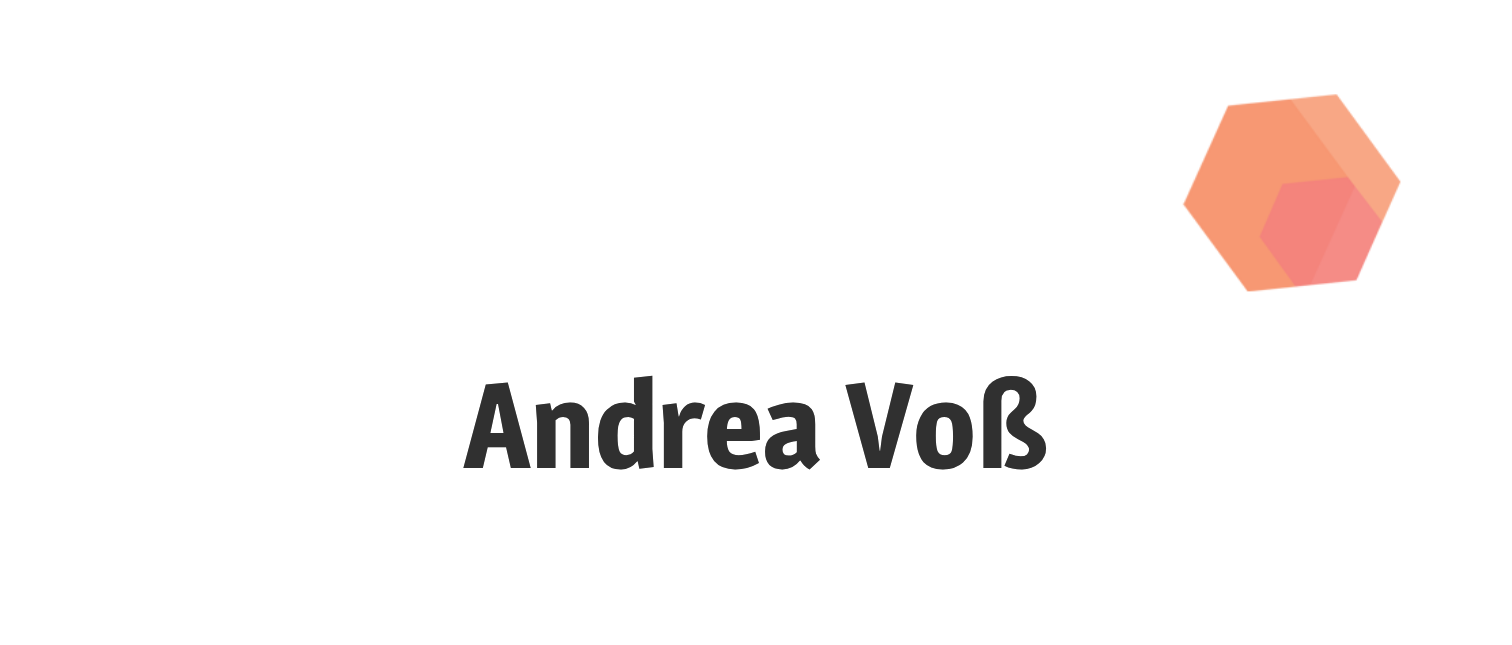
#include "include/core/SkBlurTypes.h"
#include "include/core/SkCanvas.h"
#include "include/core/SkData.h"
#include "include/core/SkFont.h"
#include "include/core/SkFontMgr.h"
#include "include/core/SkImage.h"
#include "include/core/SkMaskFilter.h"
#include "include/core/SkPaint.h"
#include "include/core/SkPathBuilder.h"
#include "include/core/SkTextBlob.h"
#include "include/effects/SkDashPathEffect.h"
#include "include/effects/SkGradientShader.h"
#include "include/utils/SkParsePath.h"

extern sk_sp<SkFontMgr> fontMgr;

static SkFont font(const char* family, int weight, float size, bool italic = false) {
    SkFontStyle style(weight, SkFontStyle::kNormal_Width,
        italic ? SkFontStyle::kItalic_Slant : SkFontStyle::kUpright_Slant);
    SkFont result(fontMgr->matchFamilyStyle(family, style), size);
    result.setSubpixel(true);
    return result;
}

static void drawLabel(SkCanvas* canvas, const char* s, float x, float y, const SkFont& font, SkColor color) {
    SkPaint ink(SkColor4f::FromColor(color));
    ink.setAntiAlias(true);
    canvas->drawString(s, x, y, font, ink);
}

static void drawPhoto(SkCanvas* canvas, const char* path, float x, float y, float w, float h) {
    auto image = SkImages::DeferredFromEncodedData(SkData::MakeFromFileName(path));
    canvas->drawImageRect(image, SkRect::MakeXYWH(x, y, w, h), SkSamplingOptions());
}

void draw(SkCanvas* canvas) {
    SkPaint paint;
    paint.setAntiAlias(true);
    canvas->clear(0xFFFFFFFF);
    drawPhoto(canvas, "assets/img1.png", 1182, 94, 219, 198);
    SkFont font1 = font("Magra", 700, 120);
    drawLabel(canvas, "Andrea Voß", 463, 468, font1, 0xFF303030);
}
